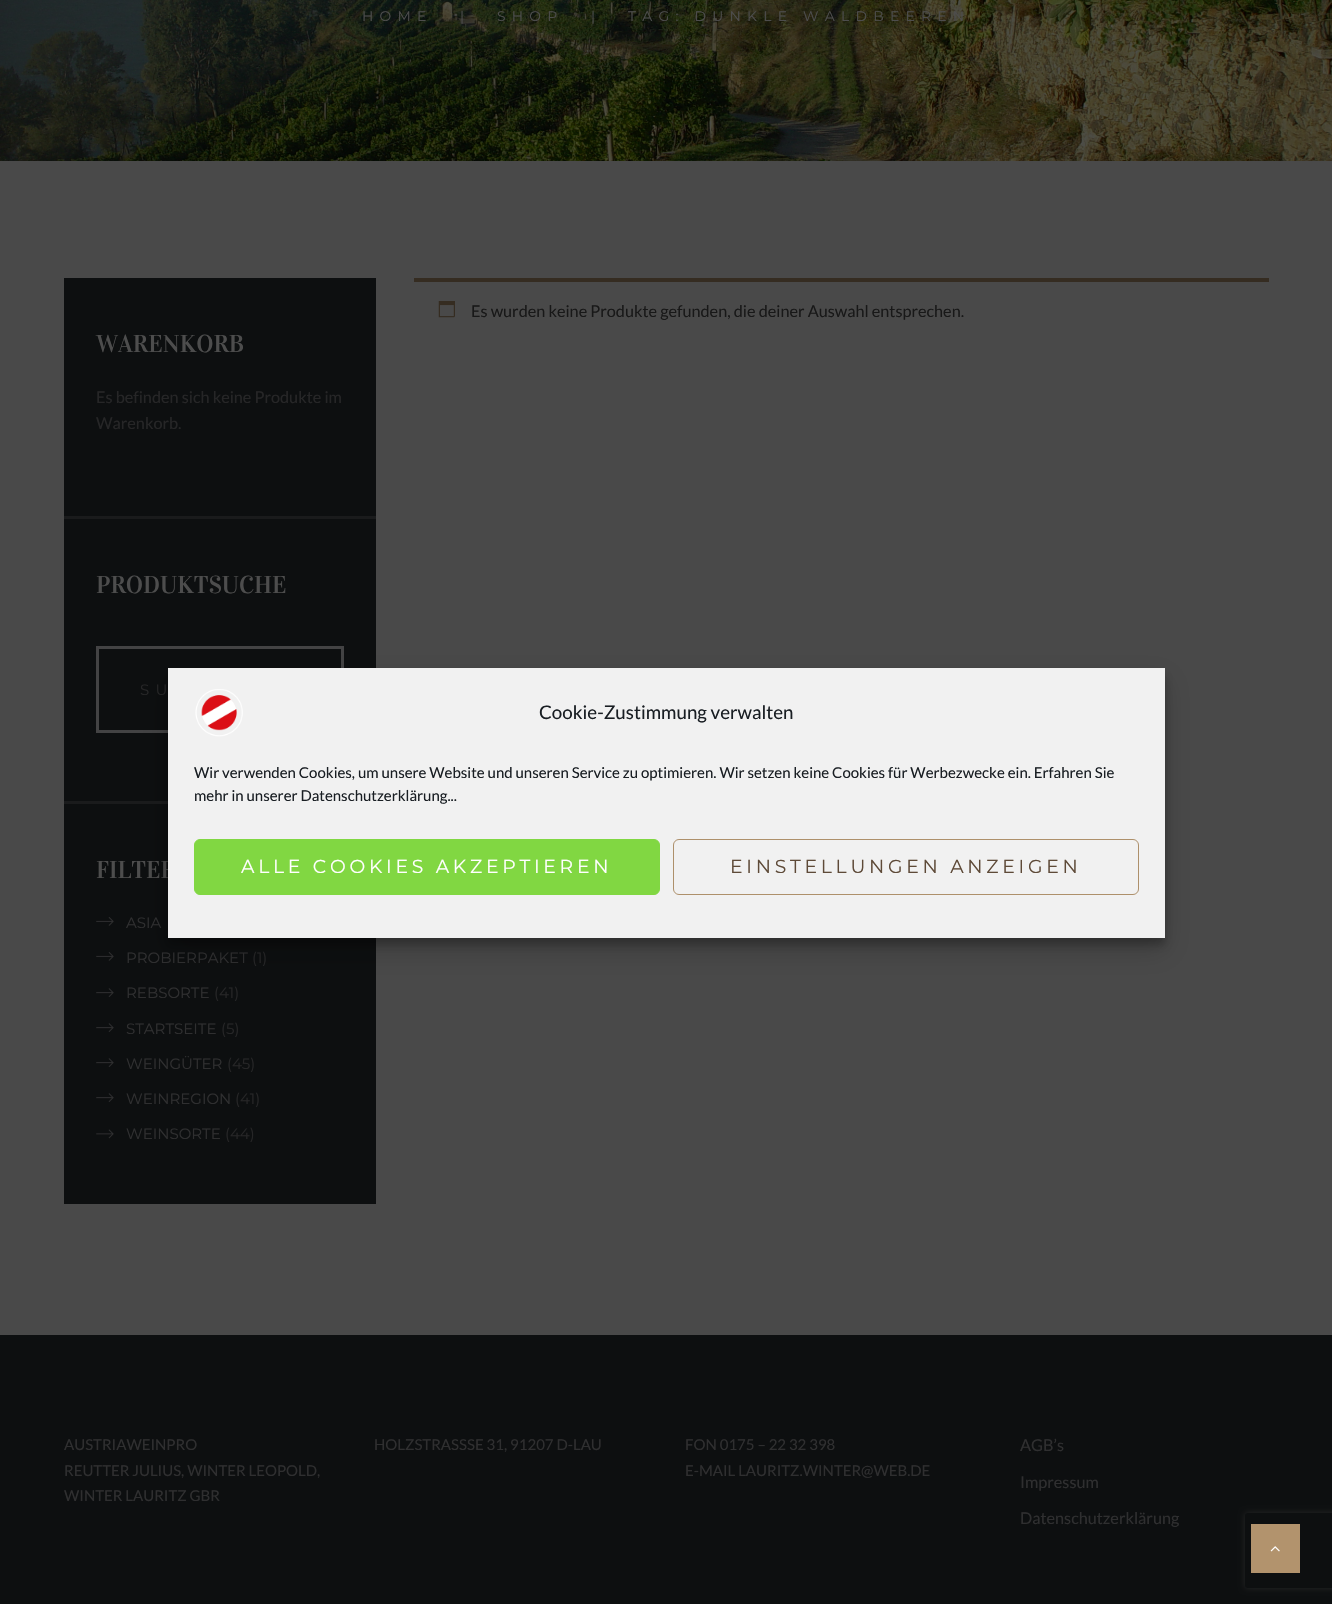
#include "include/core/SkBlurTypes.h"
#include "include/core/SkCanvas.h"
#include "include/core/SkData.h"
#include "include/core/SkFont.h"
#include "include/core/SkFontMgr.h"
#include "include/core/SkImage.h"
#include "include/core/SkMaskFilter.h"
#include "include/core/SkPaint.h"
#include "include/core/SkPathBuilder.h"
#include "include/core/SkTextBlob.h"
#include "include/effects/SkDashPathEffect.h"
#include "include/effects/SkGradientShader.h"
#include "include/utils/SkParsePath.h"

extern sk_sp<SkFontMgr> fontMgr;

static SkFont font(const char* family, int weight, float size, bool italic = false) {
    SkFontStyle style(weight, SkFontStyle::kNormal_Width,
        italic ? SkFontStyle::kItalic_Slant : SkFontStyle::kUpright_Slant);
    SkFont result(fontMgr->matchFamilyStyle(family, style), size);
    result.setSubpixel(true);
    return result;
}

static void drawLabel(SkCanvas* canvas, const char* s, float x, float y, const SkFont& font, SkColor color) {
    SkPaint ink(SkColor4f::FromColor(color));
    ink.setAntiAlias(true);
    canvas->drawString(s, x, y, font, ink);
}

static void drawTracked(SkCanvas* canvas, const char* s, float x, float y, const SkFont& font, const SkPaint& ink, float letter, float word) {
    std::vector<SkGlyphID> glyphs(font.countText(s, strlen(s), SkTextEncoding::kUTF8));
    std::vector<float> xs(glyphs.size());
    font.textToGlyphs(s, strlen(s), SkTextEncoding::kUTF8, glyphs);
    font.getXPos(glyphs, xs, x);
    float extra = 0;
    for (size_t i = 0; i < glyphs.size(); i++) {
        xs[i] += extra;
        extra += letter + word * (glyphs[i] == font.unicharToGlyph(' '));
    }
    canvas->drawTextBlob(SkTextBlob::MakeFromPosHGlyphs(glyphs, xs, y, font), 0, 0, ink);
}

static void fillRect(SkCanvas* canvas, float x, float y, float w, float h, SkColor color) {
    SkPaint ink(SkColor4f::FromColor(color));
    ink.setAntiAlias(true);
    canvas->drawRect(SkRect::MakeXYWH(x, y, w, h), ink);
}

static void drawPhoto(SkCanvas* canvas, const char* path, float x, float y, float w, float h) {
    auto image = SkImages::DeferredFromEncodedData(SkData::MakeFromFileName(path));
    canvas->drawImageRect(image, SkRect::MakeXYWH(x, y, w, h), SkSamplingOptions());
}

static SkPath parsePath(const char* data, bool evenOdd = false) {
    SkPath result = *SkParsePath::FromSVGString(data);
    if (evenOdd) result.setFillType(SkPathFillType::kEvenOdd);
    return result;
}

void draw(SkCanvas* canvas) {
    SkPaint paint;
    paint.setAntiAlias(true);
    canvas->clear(0xFF494949);
    drawPhoto(canvas, "assets/img1.png", 0, 0, 1332, 161);
    SkFont font1 = font("Montserrat", 400, 13.9f);
    paint.setColor(0xFF4D4D4D);
    drawTracked(canvas, "HOME", 362, 21, font1, paint, 6.25f, 0);
    drawTracked(canvas, "|", 460, 21, font1, paint, 6.25f, 0);
    drawTracked(canvas, "SHOP", 497, 21, font1, paint, 6.25f, 0);
    drawTracked(canvas, "|", 591, 21, font1, paint, 6.25f, 0);
    drawTracked(canvas, "TAG: DUNKLE WALDBEEREN", 628, 21, font1, paint, 6.25f, 0);
    fillRect(canvas, 414, 278, 855, 4, 0xFF352C21);
    drawPhoto(canvas, "assets/img2.png", 438, 301, 17, 17);
    SkFont font2 = font("Lato", 400, 16.25f);
    drawLabel(canvas, "Es wurden keine Produkte gefunden, die deiner Auswahl entsprechen.", 471, 317, font2, 0xFF181818);
    fillRect(canvas, 64, 278, 312, 238, 0xFF0D0F10);
    SkFont font3 = font("Vidaloka", 400, 24.5f);
    drawLabel(canvas, "WARENKORB", 96, 352, font3, 0xFF4D4D4D);
    drawLabel(canvas, "Es befinden sich keine Produkte im", 96, 403, font2, 0xFF262627);
    drawLabel(canvas, "Warenkorb.", 96, 429, font2, 0xFF262627);
    fillRect(canvas, 64, 519, 312, 282, 0xFF0D0F10);
    fillRect(canvas, 64, 516, 312, 3, 0xFF1A1B1C);
    drawLabel(canvas, "PRODUKTSUCHE", 96, 593, font3, 0xFF4D4D4D);
    paint.setStroke(true);
    paint.setStrokeWidth(3);
    paint.setColor(0xFF434344);
    canvas->drawRect(SkRect::MakeXYWH(97.5f, 647.5f, 245, 84), paint);
    SkFont font4 = font("Montserrat", 400, 15);
    paint.setStroke(false);
    paint.setColor(0xFF262627);
    drawTracked(canvas, "SU", 140, 695, font4, paint, 6.25f, 0);
    fillRect(canvas, 64, 804, 312, 400, 0xFF0D0F10);
    fillRect(canvas, 64, 801, 104, 3, 0xFF1A1B1C);
    drawLabel(canvas, "FILTER", 96, 878, font3, 0xFF4D4D4D);
    drawPhoto(canvas, "assets/img3.png", 96, 917, 18, 9);
    drawLabel(canvas, "ASIA", 126, 928, font4, 0xFF2F2F30);
    drawPhoto(canvas, "assets/img3.png", 96, 952, 18, 9);
    drawLabel(canvas, "PROBIERPAKET", 126, 963, font4, 0xFF2F2F30);
    drawLabel(canvas, "(1)", 252, 963, font4, 0xFF262627);
    drawPhoto(canvas, "assets/img4.png", 96, 988, 18, 9);
    drawLabel(canvas, "REBSORTE", 126, 998, font4, 0xFF2F2F30);
    drawLabel(canvas, "(41)", 214, 998, font4, 0xFF262627);
    drawPhoto(canvas, "assets/img4.png", 96, 1023, 18, 9);
    drawLabel(canvas, "STARTSEITE", 126, 1034, font4, 0xFF2F2F30);
    drawLabel(canvas, "(5)", 221, 1034, font4, 0xFF262627);
    drawPhoto(canvas, "assets/img4.png", 96, 1058, 18, 9);
    drawLabel(canvas, "WEINGÜTER", 126, 1069, font4, 0xFF2F2F30);
    drawLabel(canvas, "(45)", 227, 1069, font4, 0xFF262627);
    drawPhoto(canvas, "assets/img4.png", 96, 1093, 18, 9);
    drawLabel(canvas, "WEINREGION", 126, 1104, font4, 0xFF2F2F30);
    drawLabel(canvas, "(41)", 235, 1104, font4, 0xFF262627);
    drawPhoto(canvas, "assets/img5.png", 96, 1129, 18, 10);
    drawLabel(canvas, "WEINSORTE", 126, 1139, font4, 0xFF2F2F30);
    drawLabel(canvas, "(44)", 225, 1139, font4, 0xFF262627);
    fillRect(canvas, 0, 1335, 1332, 269, 0xFF0D0F10);
    SkFont font5 = font("Lato", 400, 15);
    drawLabel(canvas, "AUSTRIAWEINPRO", 64, 1450, font5, 0xFF2F2F30);
    drawLabel(canvas, "REUTTER JULIUS, WINTER LEOPOLD,", 64, 1476, font5, 0xFF2F2F30);
    drawLabel(canvas, "WINTER LAURITZ GBR", 64, 1501, font5, 0xFF2F2F30);
    drawLabel(canvas, "HOLZSTRASS", 374, 1450, font5, 0xFF2F2F30);
    drawLabel(canvas, "SE 31, 91207 D-LAU", 467, 1450, font5, 0xFF2F2F30);
    drawLabel(canvas, "FON 0175 – 22 32 398", 685, 1450, font5, 0xFF2F2F30);
    drawLabel(canvas, "E-MAIL LAURITZ.WINTER@WEB.DE", 685, 1476, font5, 0xFF2F2F30);
    drawLabel(canvas, "AGB’s", 1020, 1451, font2, 0xFF2F2F30);
    drawLabel(canvas, "Impressum", 1020, 1488, font2, 0xFF2F2F30);
    drawLabel(canvas, "Datenschutzerklärung", 1020, 1524, font2, 0xFF2F2F30);
    paint.setColor(0x3B000000);
    paint.setMaskFilter(SkMaskFilter::MakeBlur(kNormal_SkBlurStyle, 4));
    canvas->drawRect(SkRect::MakeXYWH(168, 675, 997, 270), paint);
    paint.setMaskFilter(nullptr);
    paint.setColor(0x30000000);
    paint.setMaskFilter(SkMaskFilter::MakeBlur(kNormal_SkBlurStyle, 12.5f));
    canvas->drawRect(SkRect::MakeXYWH(168, 680, 997, 270), paint);
    paint.setMaskFilter(nullptr);
    fillRect(canvas, 168, 668, 997, 270, 0xFFF1F1F1);
    drawPhoto(canvas, "assets/img6.png", 195, 689, 48, 48);
    SkFont font6 = font("Lato", 400, 18.75f);
    drawLabel(canvas, "Cookie-Zustimmung verwalten", 539, 719, font6, 0xFF191E23);
    drawLabel(canvas, "Wir verwenden Cookies, um unsere Website und unseren Service zu optimieren. Wir setzen keine Cookies für Werbezwecke ein. Erfahren Sie", 194, 778, font5, 0xFF191E23);
    drawLabel(canvas, "mehr in unserer Datenschutzerklärung...", 194, 801, font5, 0xFF191E23);
    paint.setColor(0xFF81D742);
    canvas->drawRoundRect(SkRect::MakeXYWH(194.5f, 839.5f, 465, 55), 5.5f, 5.5f, paint);
    paint.setStroke(true);
    paint.setStrokeWidth(1);
    canvas->drawRoundRect(SkRect::MakeXYWH(194.5f, 839.5f, 465, 55), 5.5f, 5.5f, paint);
    SkFont font7 = font("Montserrat", 400, 18.75f);
    paint.setStroke(false);
    paint.setColor(0xFFFFFFFF);
    drawTracked(canvas, "ALLE COOKIES AKZEPTIEREN", 241, 873, font7, paint, 3.75f, 0);
    paint.setStroke(true);
    paint.setColor(0xFFAE906B);
    canvas->drawRoundRect(SkRect::MakeXYWH(673.5f, 839.5f, 465, 55), 5.5f, 5.5f, paint);
    paint.setStroke(false);
    paint.setColor(0xFF5E4A38);
    drawTracked(canvas, "EINSTELLUNGEN ANZEIGEN", 730, 873, font7, paint, 3.75f, 0);
    canvas->save();
    canvas->clipPath(parsePath("M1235 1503H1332V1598H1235ZM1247.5 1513H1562.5C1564 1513 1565 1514 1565 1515.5V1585.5C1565 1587 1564 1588 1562.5 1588H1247.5C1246 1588 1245 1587 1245 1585.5V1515.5C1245 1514 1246 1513 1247.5 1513Z", true), true);
    paint.setColor(0xFF262626);
    paint.setMaskFilter(SkMaskFilter::MakeBlur(kNormal_SkBlurStyle, 3));
    canvas->drawRoundRect(SkRect::MakeXYWH(1245, 1513, 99, 75), 2.5f, 2.5f, paint);
    paint.setMaskFilter(nullptr);
    canvas->restore();
    fillRect(canvas, 1251, 1524, 49, 49, 0xFFB2936D);
    drawPhoto(canvas, "assets/img7.png", 1270, 1546, 10, 6);
}
